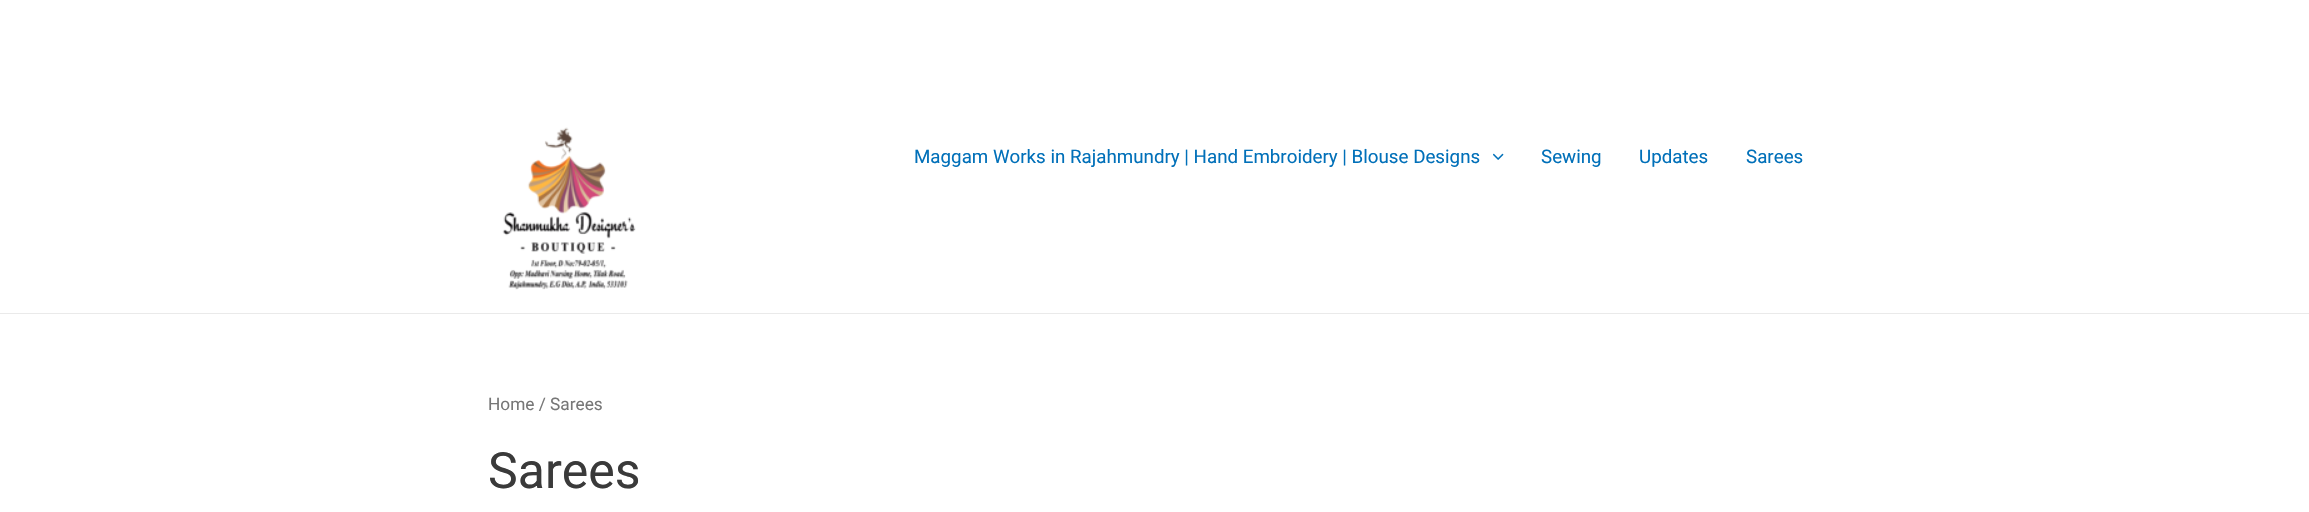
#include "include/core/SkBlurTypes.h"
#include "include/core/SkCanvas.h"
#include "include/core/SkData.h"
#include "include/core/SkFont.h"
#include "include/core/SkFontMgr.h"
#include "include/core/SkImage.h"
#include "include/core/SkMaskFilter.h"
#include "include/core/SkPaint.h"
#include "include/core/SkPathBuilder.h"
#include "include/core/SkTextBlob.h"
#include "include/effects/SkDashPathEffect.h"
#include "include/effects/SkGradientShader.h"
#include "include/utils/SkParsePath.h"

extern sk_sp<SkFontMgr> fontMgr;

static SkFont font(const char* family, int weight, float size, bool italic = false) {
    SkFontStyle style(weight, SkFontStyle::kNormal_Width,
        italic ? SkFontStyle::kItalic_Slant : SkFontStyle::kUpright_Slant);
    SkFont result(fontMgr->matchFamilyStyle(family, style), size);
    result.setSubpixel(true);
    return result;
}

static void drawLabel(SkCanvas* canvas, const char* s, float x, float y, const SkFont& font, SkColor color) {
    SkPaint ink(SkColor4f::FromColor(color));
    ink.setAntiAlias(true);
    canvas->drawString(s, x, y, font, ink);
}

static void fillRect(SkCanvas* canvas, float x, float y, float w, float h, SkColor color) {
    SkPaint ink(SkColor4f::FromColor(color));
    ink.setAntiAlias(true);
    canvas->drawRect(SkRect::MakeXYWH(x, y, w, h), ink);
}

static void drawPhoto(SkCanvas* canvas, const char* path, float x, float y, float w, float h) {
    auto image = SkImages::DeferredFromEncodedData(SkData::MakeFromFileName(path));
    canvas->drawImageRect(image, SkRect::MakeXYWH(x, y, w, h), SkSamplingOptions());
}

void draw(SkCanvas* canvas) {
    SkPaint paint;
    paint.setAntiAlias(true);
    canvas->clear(0xFFFFFFFF);
    fillRect(canvas, 0, 313, 2309, 1, 0xFFEAEAEA);
    drawPhoto(canvas, "assets/img1.png", 502, 127, 134, 163);
    SkFont font1 = font("Roboto", 400, 18.75f);
    drawLabel(canvas, "Maggam Works in Rajahmundry | Hand Embroidery | Blouse Designs", 914, 163, font1, 0xFF0170B9);
    drawPhoto(canvas, "assets/img2.png", 1493, 153, 11, 7);
    drawLabel(canvas, "Sewing", 1541, 163, font1, 0xFF0170B9);
    drawLabel(canvas, "Updates", 1639, 163, font1, 0xFF0170B9);
    drawLabel(canvas, "Sarees", 1746, 163, font1, 0xFF0170B9);
    SkFont font2 = font("Roboto", 400, 17.25f);
    drawLabel(canvas, "Home / Sarees", 488, 410, font2, 0xFF777777);
    SkFont font3 = font("Roboto", 400, 50);
    drawLabel(canvas, "Sarees", 488, 488, font3, 0xFF3A3A3A);
}
